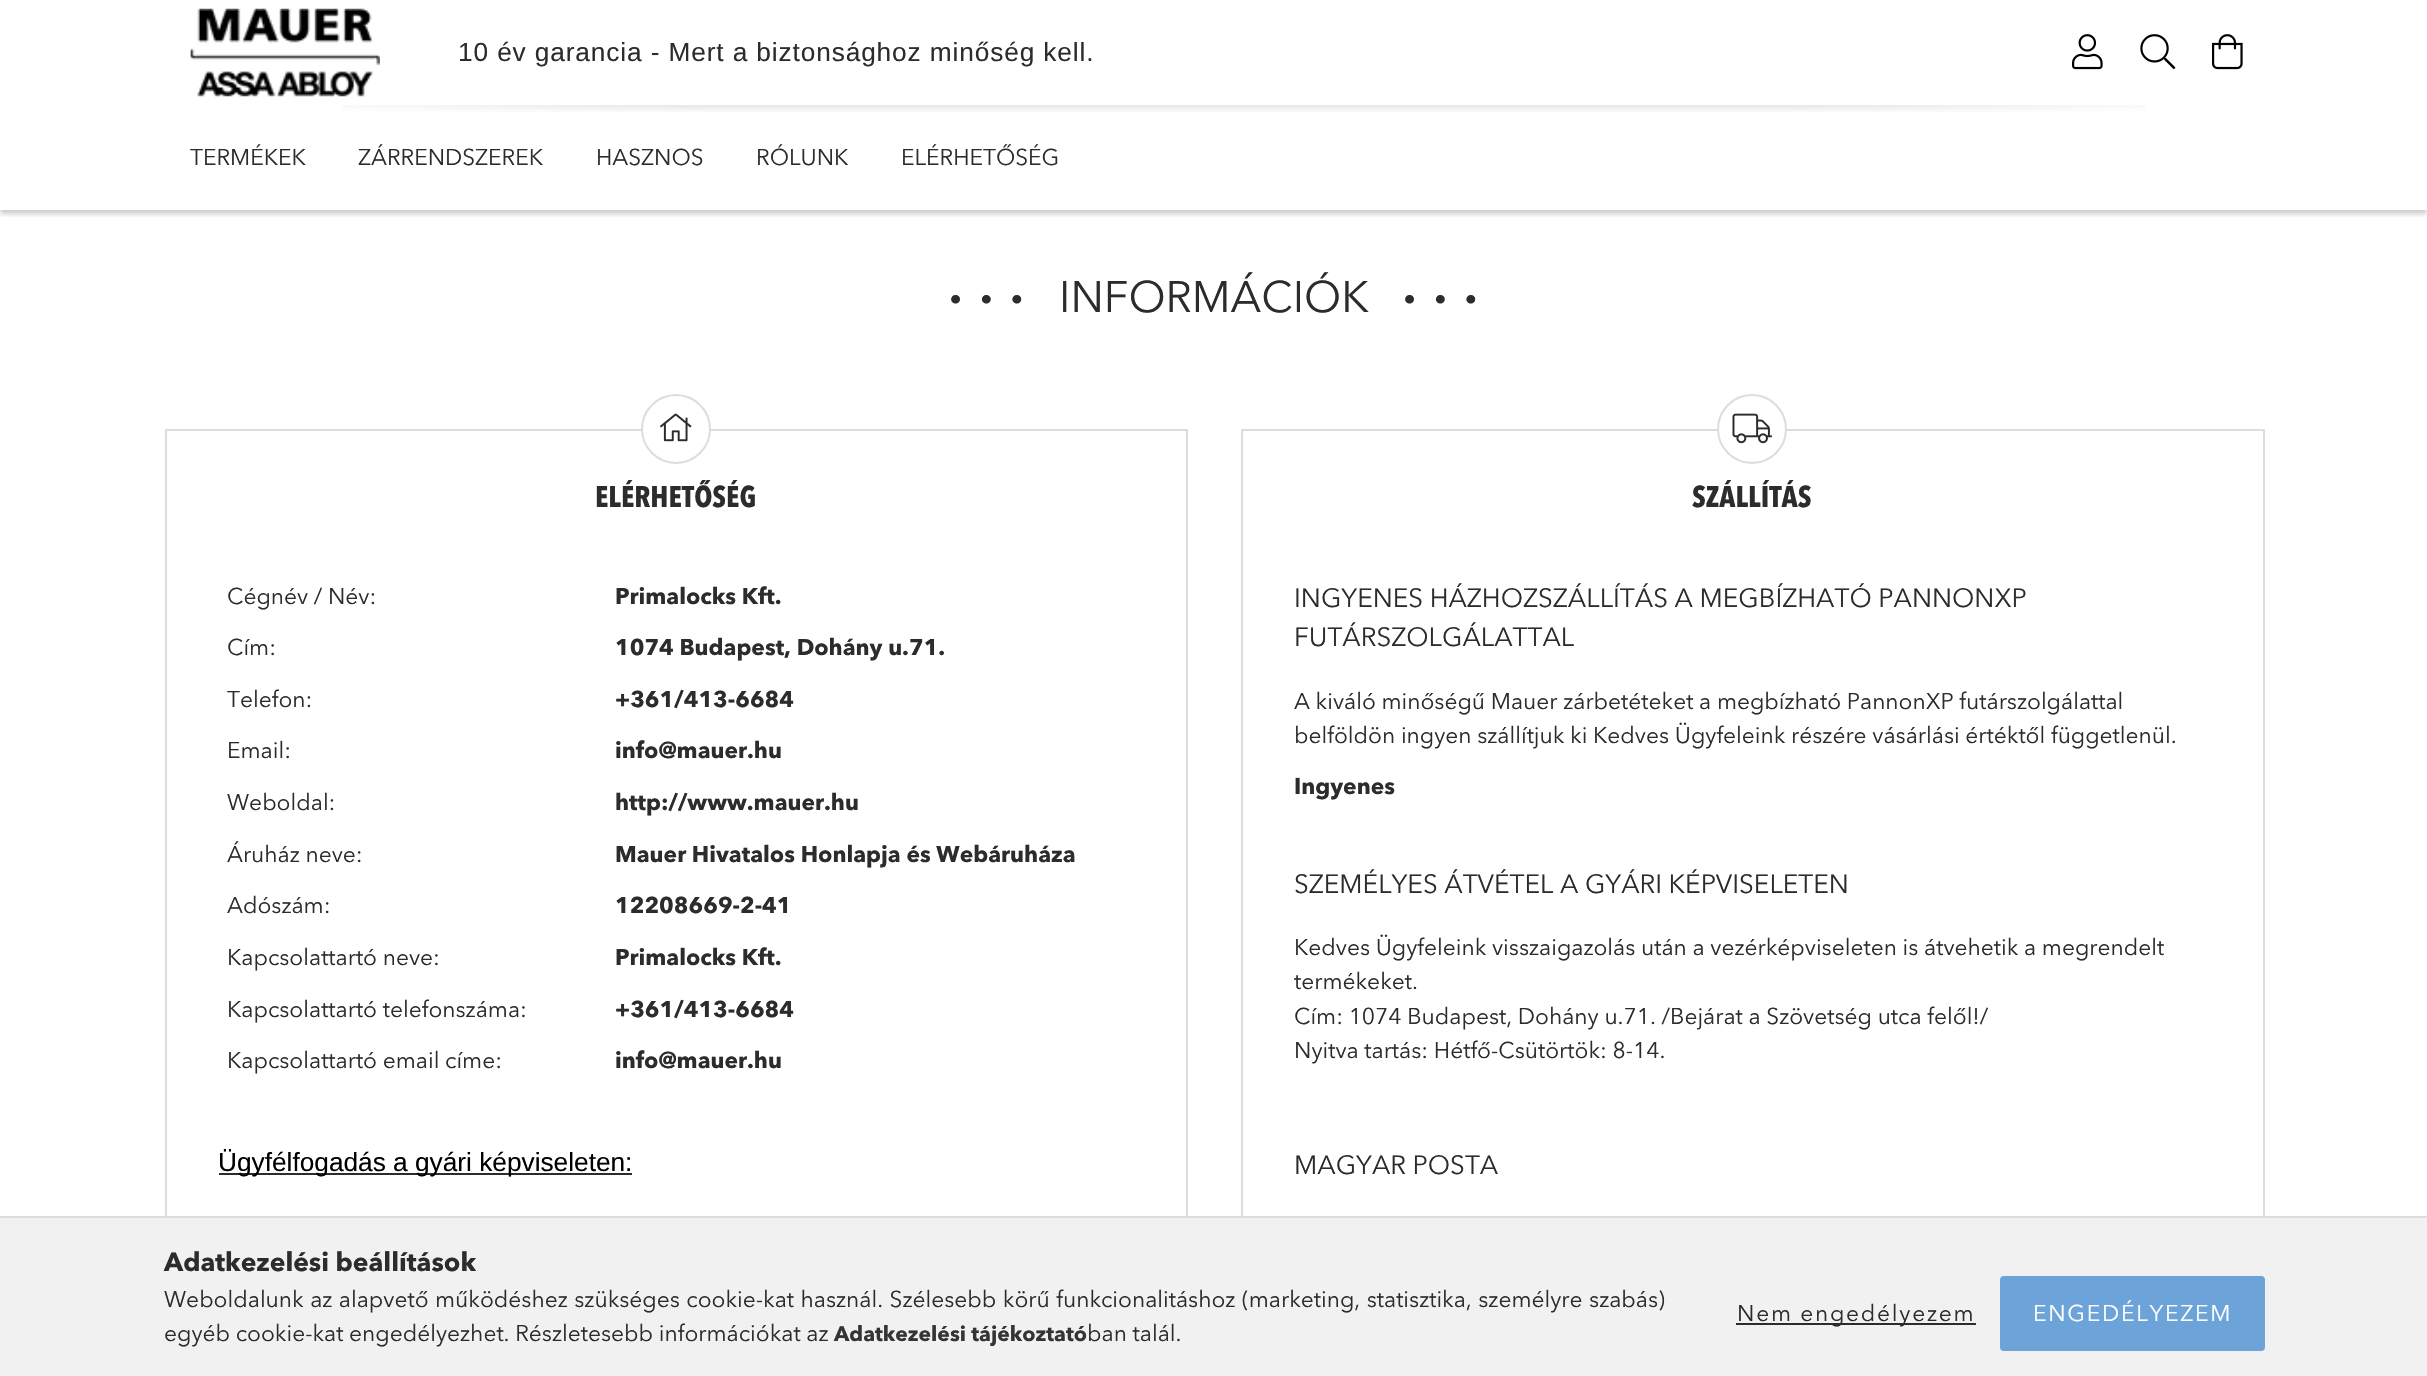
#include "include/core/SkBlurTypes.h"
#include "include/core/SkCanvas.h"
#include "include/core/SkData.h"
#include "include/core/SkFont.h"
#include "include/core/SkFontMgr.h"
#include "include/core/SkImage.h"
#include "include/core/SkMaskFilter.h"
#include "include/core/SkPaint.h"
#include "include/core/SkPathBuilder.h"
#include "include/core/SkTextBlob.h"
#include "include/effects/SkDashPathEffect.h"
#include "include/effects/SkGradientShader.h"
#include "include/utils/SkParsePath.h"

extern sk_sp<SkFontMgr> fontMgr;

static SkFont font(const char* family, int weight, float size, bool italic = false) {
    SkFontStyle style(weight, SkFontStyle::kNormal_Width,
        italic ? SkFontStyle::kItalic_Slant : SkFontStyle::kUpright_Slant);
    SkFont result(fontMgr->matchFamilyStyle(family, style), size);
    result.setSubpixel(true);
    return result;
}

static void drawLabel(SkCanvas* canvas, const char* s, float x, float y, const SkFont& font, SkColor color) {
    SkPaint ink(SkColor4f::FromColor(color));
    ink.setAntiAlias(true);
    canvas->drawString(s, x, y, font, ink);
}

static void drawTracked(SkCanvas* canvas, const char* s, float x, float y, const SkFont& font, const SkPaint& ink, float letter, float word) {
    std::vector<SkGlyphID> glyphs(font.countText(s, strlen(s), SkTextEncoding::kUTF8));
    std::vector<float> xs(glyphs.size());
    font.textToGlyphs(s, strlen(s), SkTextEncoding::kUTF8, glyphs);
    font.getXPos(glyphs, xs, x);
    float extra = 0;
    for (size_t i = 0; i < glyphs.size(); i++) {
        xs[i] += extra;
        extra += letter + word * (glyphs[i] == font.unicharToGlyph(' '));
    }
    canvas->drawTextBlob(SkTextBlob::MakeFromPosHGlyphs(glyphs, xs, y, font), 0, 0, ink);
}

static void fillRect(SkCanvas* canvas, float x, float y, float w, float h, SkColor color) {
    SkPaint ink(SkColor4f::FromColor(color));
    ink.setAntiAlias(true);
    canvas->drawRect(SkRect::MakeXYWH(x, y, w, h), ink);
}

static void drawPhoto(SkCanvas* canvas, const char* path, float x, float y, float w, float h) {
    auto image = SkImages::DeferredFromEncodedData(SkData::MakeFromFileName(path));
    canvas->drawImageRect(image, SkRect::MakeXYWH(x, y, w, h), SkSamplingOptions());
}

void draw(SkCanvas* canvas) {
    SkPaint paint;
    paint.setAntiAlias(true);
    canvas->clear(0xFFFFFFFF);
    canvas->save();
    canvas->clipRect(SkRect::MakeXYWH(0, 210, 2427, 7));
    paint.setColor(0x33000000);
    paint.setMaskFilter(SkMaskFilter::MakeBlur(kNormal_SkBlurStyle, 2.5f));
    canvas->drawRect(SkRect::MakeXYWH(0, 4, 2427, 210), paint);
    paint.setMaskFilter(nullptr);
    canvas->restore();
    drawPhoto(canvas, "assets/img1.png", 190, 8, 190, 89);
    SkFont font1 = font("Liberation Sans", 400, 26.25f);
    paint.setColor(0xFF2C2C2C);
    drawTracked(canvas, "10 év garancia - Mert a biztonsághoz minőség kell.", 458, 61, font1, paint, 0.88f, 0);
    drawPhoto(canvas, "assets/img2.png", 2072, 34, 31, 36);
    drawPhoto(canvas, "assets/img3.png", 2140, 34, 36, 36);
    drawPhoto(canvas, "assets/img4.png", 2212, 34, 31, 36);
    drawPhoto(canvas, "assets/img5.png", 342, 105, 1804, 7);
    SkFont font2 = font("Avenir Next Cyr", 400, 22.75f);
    drawLabel(canvas, "TERMÉKEK", 190, 165, font2, 0xFF2C2C2C);
    drawLabel(canvas, "ZÁRRENDSZEREK", 358, 165, font2, 0xFF2C2C2C);
    drawLabel(canvas, "HASZNOS", 596, 165, font2, 0xFF2C2C2C);
    drawLabel(canvas, "RÓLUNK", 756, 165, font2, 0xFF2C2C2C);
    drawLabel(canvas, "ELÉRHETŐSÉG", 901, 165, font2, 0xFF2C2C2C);
    SkFont font3 = font("Avenir Next Cyr", 700, 43.75f);
    drawTracked(canvas, "∙∙∙", 949, 312, font3, paint, 17.5f, 0);
    SkFont font4 = font("Avenir Next Cyr", 400, 43.75f);
    drawLabel(canvas, "INFORMÁCIÓK", 1059, 312, font4, 0xFF2C2C2C);
    drawTracked(canvas, "∙∙∙", 1403, 312, font3, paint, 17.5f, 0);
    paint.setStroke(true);
    paint.setStrokeWidth(2);
    paint.setColor(0xFFDDDDDD);
    canvas->drawRect(SkRect::MakeXYWH(166, 430, 1021, 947), paint);
    paint.setStroke(false);
    paint.setColor(0xFFFFFFFF);
    canvas->drawCircle(676, 429, 34, paint);
    paint.setStroke(true);
    paint.setColor(0xFFDDDDDD);
    canvas->drawCircle(676, 429, 34, paint);
    drawPhoto(canvas, "assets/img6.png", 660, 413, 32, 29);
    SkFont font5 = font("Avenir Next", 700, 29.75f);
    drawLabel(canvas, "ELÉRHETŐSÉG", 595, 507, font5, 0xFF2C2C2C);
    drawLabel(canvas, "Cégnév / Név:", 227, 604, font2, 0xFF2C2C2C);
    SkFont font6 = font("Avenir Next Cyr", 700, 22.75f);
    drawLabel(canvas, "Primalocks Kft.", 615, 604, font6, 0xFF2C2C2C);
    drawLabel(canvas, "Cím:", 227, 655, font2, 0xFF2C2C2C);
    drawLabel(canvas, "1074 Budapest, Dohány u.71.", 615, 655, font6, 0xFF2C2C2C);
    drawLabel(canvas, "Telefon:", 227, 707, font2, 0xFF2C2C2C);
    drawLabel(canvas, "+361/413-6684", 615, 707, font6, 0xFF2C2C2C);
    drawLabel(canvas, "Email:", 227, 758, font2, 0xFF2C2C2C);
    drawLabel(canvas, "info@mauer.hu", 615, 758, font6, 0xFF2C2C2C);
    drawLabel(canvas, "Weboldal:", 227, 810, font2, 0xFF2C2C2C);
    drawLabel(canvas, "http://www.mauer.hu", 615, 810, font6, 0xFF2C2C2C);
    drawLabel(canvas, "Áruház neve:", 227, 862, font2, 0xFF2C2C2C);
    drawLabel(canvas, "Mauer Hivatalos Honlapja és Webáruháza", 615, 862, font6, 0xFF2C2C2C);
    drawLabel(canvas, "Adószám:", 227, 913, font2, 0xFF2C2C2C);
    drawLabel(canvas, "12208669-2-41", 615, 913, font6, 0xFF2C2C2C);
    drawLabel(canvas, "Kapcsolattartó neve:", 227, 965, font2, 0xFF2C2C2C);
    drawLabel(canvas, "Primalocks Kft.", 615, 965, font6, 0xFF2C2C2C);
    drawLabel(canvas, "Kapcsolattartó telefonszáma:", 227, 1017, font2, 0xFF2C2C2C);
    drawLabel(canvas, "+361/413-6684", 615, 1017, font6, 0xFF2C2C2C);
    drawLabel(canvas, "Kapcsolattartó email címe:", 227, 1068, font2, 0xFF2C2C2C);
    drawLabel(canvas, "info@mauer.hu", 615, 1068, font6, 0xFF2C2C2C);
    fillRect(canvas, 219, 1173, 413, 2, 0xFF2C2C2C);
    drawLabel(canvas, "Ügyfélfogadás a gyári képviseleten:", 218, 1171, font1, 0xFF000000);
    canvas->drawRect(SkRect::MakeXYWH(1242, 430, 1022, 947), paint);
    paint.setStroke(false);
    paint.setColor(0xFFFFFFFF);
    canvas->drawCircle(1752, 429, 34, paint);
    paint.setStroke(true);
    paint.setColor(0xFFDDDDDD);
    canvas->drawCircle(1752, 429, 34, paint);
    drawPhoto(canvas, "assets/img7.png", 1732, 413, 40, 31);
    drawLabel(canvas, "SZÁLLÍTÁS", 1692, 507, font5, 0xFF2C2C2C);
    SkFont font7 = font("Avenir Next Cyr", 400, 26.25f);
    drawLabel(canvas, "INGYENES HÁZHOZSZÁLLÍTÁS A MEGBÍZHATÓ PANNONXP", 1294, 607, font7, 0xFF2C2C2C);
    drawLabel(canvas, "FUTÁRSZOLGÁLATTAL", 1294, 646, font7, 0xFF2C2C2C);
    drawLabel(canvas, "A kiváló minőségű Mauer zárbetéteket a megbízható PannonXP futárszolgálattal", 1294, 709, font2, 0xFF2C2C2C);
    drawLabel(canvas, "belföldön ingyen szállítjuk ki Kedves Ügyfeleink részére vásárlási értéktől függetlenül.", 1294, 743, font2, 0xFF2C2C2C);
    drawLabel(canvas, "Ingyenes", 1294, 794, font6, 0xFF2C2C2C);
    drawLabel(canvas, "SZEMÉLYES ÁTVÉTEL A GYÁRI KÉPVISELETEN", 1294, 893, font7, 0xFF2C2C2C);
    drawLabel(canvas, "Kedves Ügyfeleink visszaigazolás után a vezérképviseleten is átvehetik a megrendelt", 1294, 955, font2, 0xFF2C2C2C);
    drawLabel(canvas, "termékeket.", 1294, 989, font2, 0xFF2C2C2C);
    drawLabel(canvas, "Cím: 1074 Budapest, Dohány u.71. /Bejárat a Szövetség utca felől!/", 1294, 1024, font2, 0xFF2C2C2C);
    drawLabel(canvas, "Nyitva tartás: Hétfő-Csütörtök: 8-14.", 1294, 1058, font2, 0xFF2C2C2C);
    drawLabel(canvas, "MAGYAR POSTA", 1294, 1174, font7, 0xFF2C2C2C);
    fillRect(canvas, 0, 1218, 2427, 158, 0xFFF1F1F1);
    fillRect(canvas, 0, 1216, 2427, 2, 0xFFDDDDDD);
    SkFont font8 = font("Avenir Next Cyr", 700, 26.25f);
    drawLabel(canvas, "Adatkezelési beállítások", 164, 1271, font8, 0xFF2C2C2C);
    paint.setStroke(false);
    paint.setColor(0xFF2C2C2C);
    drawTracked(canvas, "Weboldalunk az alapvető működéshez szükséges cookie-kat használ. Szélesebb körű funkcionalitáshoz (marketing, statisztika, személyre szabás)", 164, 1307, font2, paint, 0, 0.8f);
    drawLabel(canvas, "egyéb cookie-kat engedélyezhet. Részletesebb információkat az", 164, 1341, font2, 0xFF2C2C2C);
    SkFont font9 = font("Avenir Next Cyr", 700, 21);
    drawLabel(canvas, "Adatkezelési tájékoztató", 834, 1341, font9, 0xFF343434);
    drawLabel(canvas, "ban talál.", 1087, 1341, font2, 0xFF2C2C2C);
    fillRect(canvas, 1736, 1323, 240, 2, 0xFF2C2C2C);
    drawTracked(canvas, "Nem engedélyezem", 1737, 1321, font2, paint, 1.75f, 0);
    paint.setColor(0xFF6CA3D9);
    canvas->drawRoundRect(SkRect::MakeXYWH(2001, 1277, 263, 73), 3, 3, paint);
    paint.setStroke(true);
    canvas->drawRoundRect(SkRect::MakeXYWH(2001, 1277, 263, 73), 3, 3, paint);
    paint.setStroke(false);
    paint.setColor(0xFFFFFFFF);
    drawTracked(canvas, "ENGEDÉLYEZEM", 2033, 1321, font2, paint, 1.75f, 0);
}
